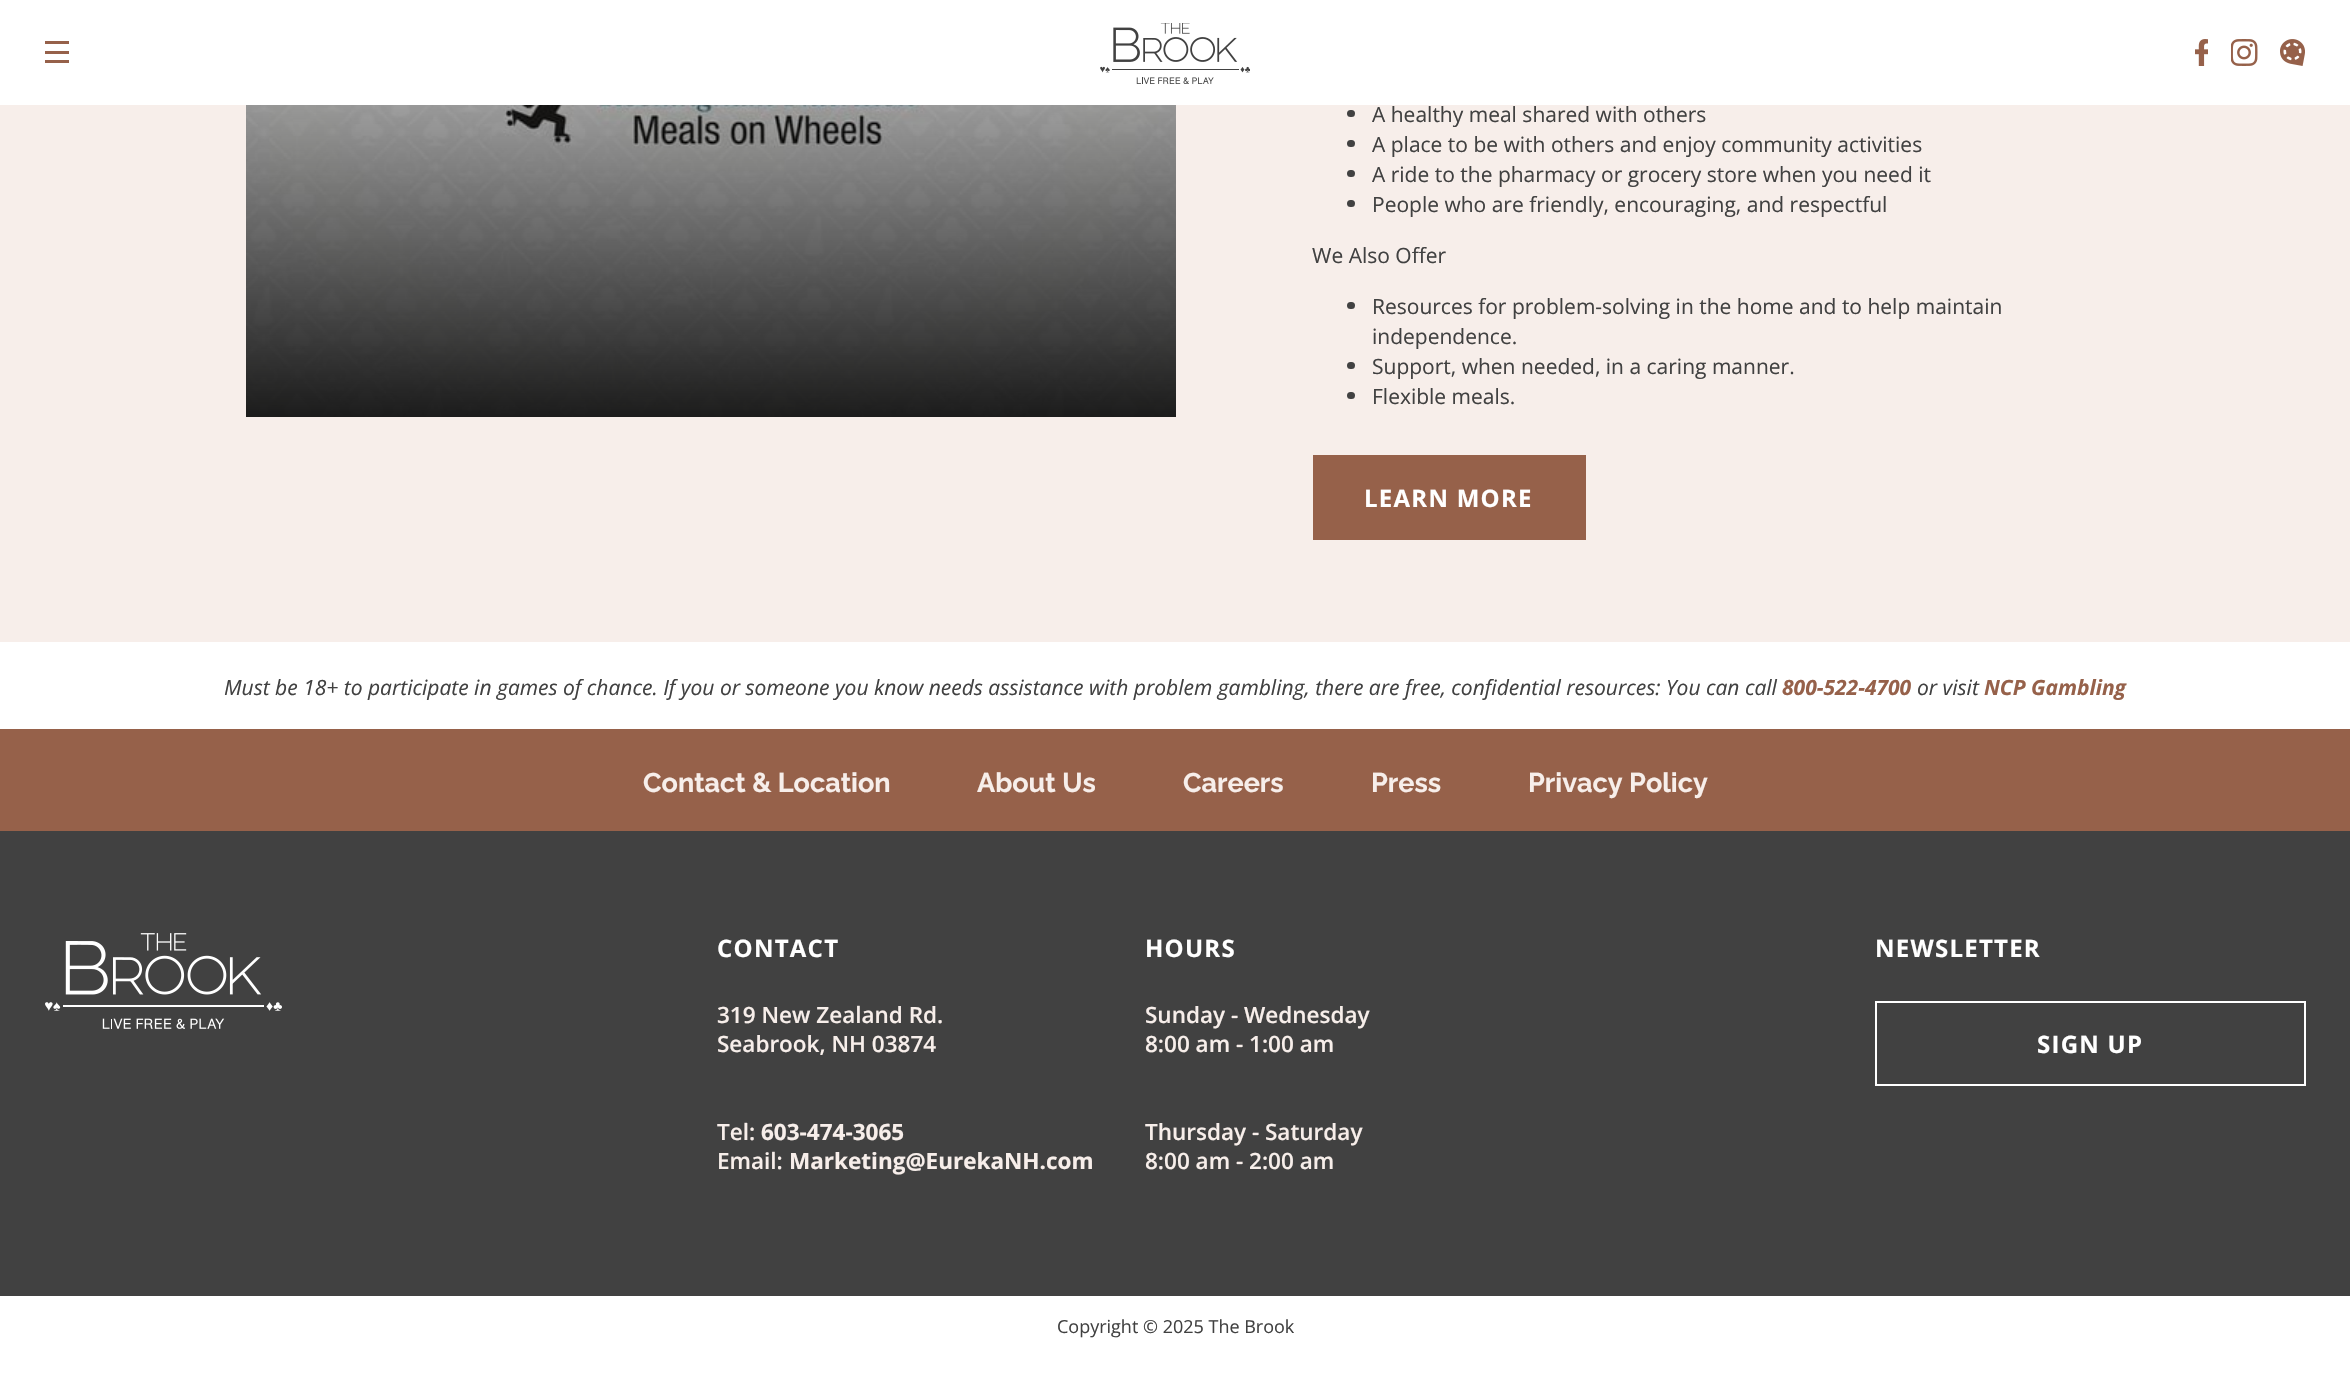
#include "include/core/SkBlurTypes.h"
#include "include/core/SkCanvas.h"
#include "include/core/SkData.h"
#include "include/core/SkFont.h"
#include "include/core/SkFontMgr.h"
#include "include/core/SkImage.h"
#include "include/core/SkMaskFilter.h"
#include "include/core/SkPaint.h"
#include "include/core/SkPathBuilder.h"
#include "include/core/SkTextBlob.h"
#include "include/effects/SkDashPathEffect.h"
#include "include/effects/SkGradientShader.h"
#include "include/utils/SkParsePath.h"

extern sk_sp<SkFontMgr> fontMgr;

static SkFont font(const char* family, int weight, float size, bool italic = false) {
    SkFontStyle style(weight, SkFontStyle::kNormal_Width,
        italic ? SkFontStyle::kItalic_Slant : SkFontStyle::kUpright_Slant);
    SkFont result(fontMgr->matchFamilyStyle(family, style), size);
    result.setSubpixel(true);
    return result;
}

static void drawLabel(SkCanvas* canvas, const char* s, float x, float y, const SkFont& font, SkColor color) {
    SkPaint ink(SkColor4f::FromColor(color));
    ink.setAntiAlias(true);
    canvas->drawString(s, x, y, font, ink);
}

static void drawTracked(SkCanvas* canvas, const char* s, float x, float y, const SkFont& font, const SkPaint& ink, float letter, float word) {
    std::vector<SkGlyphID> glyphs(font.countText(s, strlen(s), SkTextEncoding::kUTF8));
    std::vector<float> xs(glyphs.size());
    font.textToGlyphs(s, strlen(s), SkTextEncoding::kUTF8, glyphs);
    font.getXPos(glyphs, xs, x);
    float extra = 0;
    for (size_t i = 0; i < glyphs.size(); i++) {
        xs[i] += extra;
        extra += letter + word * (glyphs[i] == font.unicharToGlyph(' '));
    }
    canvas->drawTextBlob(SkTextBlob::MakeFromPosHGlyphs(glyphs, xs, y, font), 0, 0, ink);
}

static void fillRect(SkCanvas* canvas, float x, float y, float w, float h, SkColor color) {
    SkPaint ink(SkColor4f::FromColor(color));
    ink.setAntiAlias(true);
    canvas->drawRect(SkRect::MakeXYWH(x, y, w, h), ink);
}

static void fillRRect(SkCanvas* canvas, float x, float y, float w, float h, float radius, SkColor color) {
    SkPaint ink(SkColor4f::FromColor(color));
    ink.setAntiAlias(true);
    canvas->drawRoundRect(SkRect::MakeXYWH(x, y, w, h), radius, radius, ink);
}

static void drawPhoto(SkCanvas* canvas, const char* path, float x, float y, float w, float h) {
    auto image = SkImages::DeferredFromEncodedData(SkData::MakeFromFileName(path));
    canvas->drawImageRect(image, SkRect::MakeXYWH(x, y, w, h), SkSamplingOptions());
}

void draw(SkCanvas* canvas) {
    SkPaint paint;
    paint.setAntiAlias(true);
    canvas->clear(0xFFFFFFFF);
    fillRect(canvas, 45, 41, 24, 3, 0xFF96614A);
    fillRect(canvas, 45, 51, 24, 3, 0xFF96614A);
    fillRect(canvas, 45, 60, 24, 3, 0xFF96614A);
    drawPhoto(canvas, "assets/img1.png", 1100, 23, 150, 61);
    drawPhoto(canvas, "assets/img2.png", 2195, 39, 13, 27);
    drawPhoto(canvas, "assets/img3.png", 2231, 39, 27, 27);
    drawPhoto(canvas, "assets/img4.png", 2280, 39, 25, 27);
    fillRect(canvas, 0, 105, 2350, 537, 0xFFF7EEEA);
    drawPhoto(canvas, "assets/img5.png", 246, 105, 930, 312);
    {
        const SkColor colors[] = {0x00000000, 0xE0000000};
        const float stops[] = {0.01f, 1};
        const SkPoint ends[] = {{711, -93}, {711, 417}};
        paint.setShader(SkGradientShader::MakeLinear(ends, colors, stops, 2, SkTileMode::kClamp));
        paint.setAlpha(255);
    }
    canvas->drawRect(SkRect::MakeXYWH(246, 105, 930, 312), paint);
    fillRRect(canvas, 1347, 110, 8, 7, 3.5f, 0xFF414141);
    SkFont font1 = font("Open Sans", 400, 21);
    drawLabel(canvas, "A healthy meal shared with others", 1372, 122, font1, 0xFF414141);
    fillRRect(canvas, 1347, 140, 8, 7, 3.5f, 0xFF414141);
    drawLabel(canvas, "A place to be with others and enjoy community activities", 1372, 152, font1, 0xFF414141);
    fillRRect(canvas, 1347, 170, 8, 7, 3.5f, 0xFF414141);
    drawLabel(canvas, "A ride to the pharmacy or grocery store when you need it", 1372, 182, font1, 0xFF414141);
    fillRRect(canvas, 1347, 200, 8, 7, 3.5f, 0xFF414141);
    drawLabel(canvas, "People who are friendly, encouraging, and respectful", 1372, 212, font1, 0xFF414141);
    drawLabel(canvas, "We Also Offer", 1312, 263, font1, 0xFF414141);
    fillRRect(canvas, 1347, 302, 8, 7, 3.5f, 0xFF414141);
    drawLabel(canvas, "Resources for problem-solving in the home and to help maintain", 1372, 314, font1, 0xFF414141);
    drawLabel(canvas, "independence.", 1372, 344, font1, 0xFF414141);
    fillRRect(canvas, 1347, 362, 8, 7, 3.5f, 0xFF414141);
    drawLabel(canvas, "Support, when needed, in a caring manner.", 1372, 374, font1, 0xFF414141);
    fillRRect(canvas, 1347, 392, 8, 7, 3.5f, 0xFF414141);
    drawLabel(canvas, "Flexible meals.", 1372, 404, font1, 0xFF414141);
    fillRect(canvas, 1313, 455, 273, 85, 0xFF96614A);
    SkFont font2 = font("Open Sans", 700, 24);
    paint.setShader(nullptr);
    paint.setColor(0xFFFFFFFF);
    drawTracked(canvas, "LEARN MORE", 1364, 507, font2, paint, 1.25f, 0);
    SkFont font3 = font("Open Sans", 400, 21, true);
    drawLabel(canvas, "Must be 18+ to participate in games of chance. If you or someone you know needs assistance with problem gambling, there are free, confidential resources: You can call", 224, 695, font3, 0xFF414141);
    SkFont font4 = font("Open Sans", 700, 21, true);
    drawLabel(canvas, "800-522-4700", 1782, 695, font4, 0xFF96614A);
    drawLabel(canvas, "or visit", 1917, 695, font3, 0xFF414141);
    drawLabel(canvas, "NCP Gambling", 1984, 695, font4, 0xFF96614A);
    fillRect(canvas, 0, 831, 2350, 465, 0xFF414141);
    fillRect(canvas, 0, 729, 2350, 102, 0xFF96614A);
    SkFont font5 = font("Raleway", 700, 27);
    drawLabel(canvas, "Contact & Location", 643, 792, font5, 0xFFF7EEEA);
    drawLabel(canvas, "About Us", 977, 792, font5, 0xFFF7EEEA);
    drawLabel(canvas, "Careers", 1183, 792, font5, 0xFFF7EEEA);
    drawLabel(canvas, "Press", 1371, 792, font5, 0xFFF7EEEA);
    drawLabel(canvas, "Privacy Policy", 1528, 792, font5, 0xFFF7EEEA);
    drawPhoto(canvas, "assets/img6.png", 45, 933, 237, 96);
    drawTracked(canvas, "CONTACT", 717, 957, font2, paint, 1.25f, 0);
    SkFont font6 = font("Open Sans", 600, 22.5f);
    drawLabel(canvas, "319 New Zealand Rd.", 717, 1023, font6, 0xFFF7EEEA);
    drawLabel(canvas, "Seabrook, NH 03874", 717, 1052, font6, 0xFFF7EEEA);
    drawLabel(canvas, "Tel:", 717, 1140, font6, 0xFFF7EEEA);
    SkFont font7 = font("Open Sans", 700, 22.5f);
    drawLabel(canvas, "603-474-3065", 761, 1140, font7, 0xFFF7EEEA);
    drawLabel(canvas, "Email:", 717, 1169, font6, 0xFFF7EEEA);
    drawLabel(canvas, "Marketing@EurekaNH.com", 789, 1169, font7, 0xFFF7EEEA);
    drawTracked(canvas, "HOURS", 1145, 957, font2, paint, 1.25f, 0);
    drawLabel(canvas, "Sunday - Wednesday", 1145, 1023, font6, 0xFFF7EEEA);
    drawLabel(canvas, "8:00 am - 1:00 am", 1145, 1052, font6, 0xFFF7EEEA);
    drawLabel(canvas, "Thursday - Saturday", 1145, 1140, font6, 0xFFF7EEEA);
    drawLabel(canvas, "8:00 am - 2:00 am", 1145, 1169, font6, 0xFFF7EEEA);
    drawTracked(canvas, "NEWSLETTER", 1875, 957, font2, paint, 1.25f, 0);
    paint.setStroke(true);
    paint.setStrokeWidth(2);
    canvas->drawRect(SkRect::MakeXYWH(1876, 1002, 429, 83), paint);
    paint.setStroke(false);
    drawTracked(canvas, "SIGN UP", 2037, 1053, font2, paint, 1.25f, 0);
    SkFont font8 = font("Open Sans", 400, 18);
    drawLabel(canvas, "Copyright © 2025 The Brook", 1057, 1333, font8, 0xFF414141);
}
